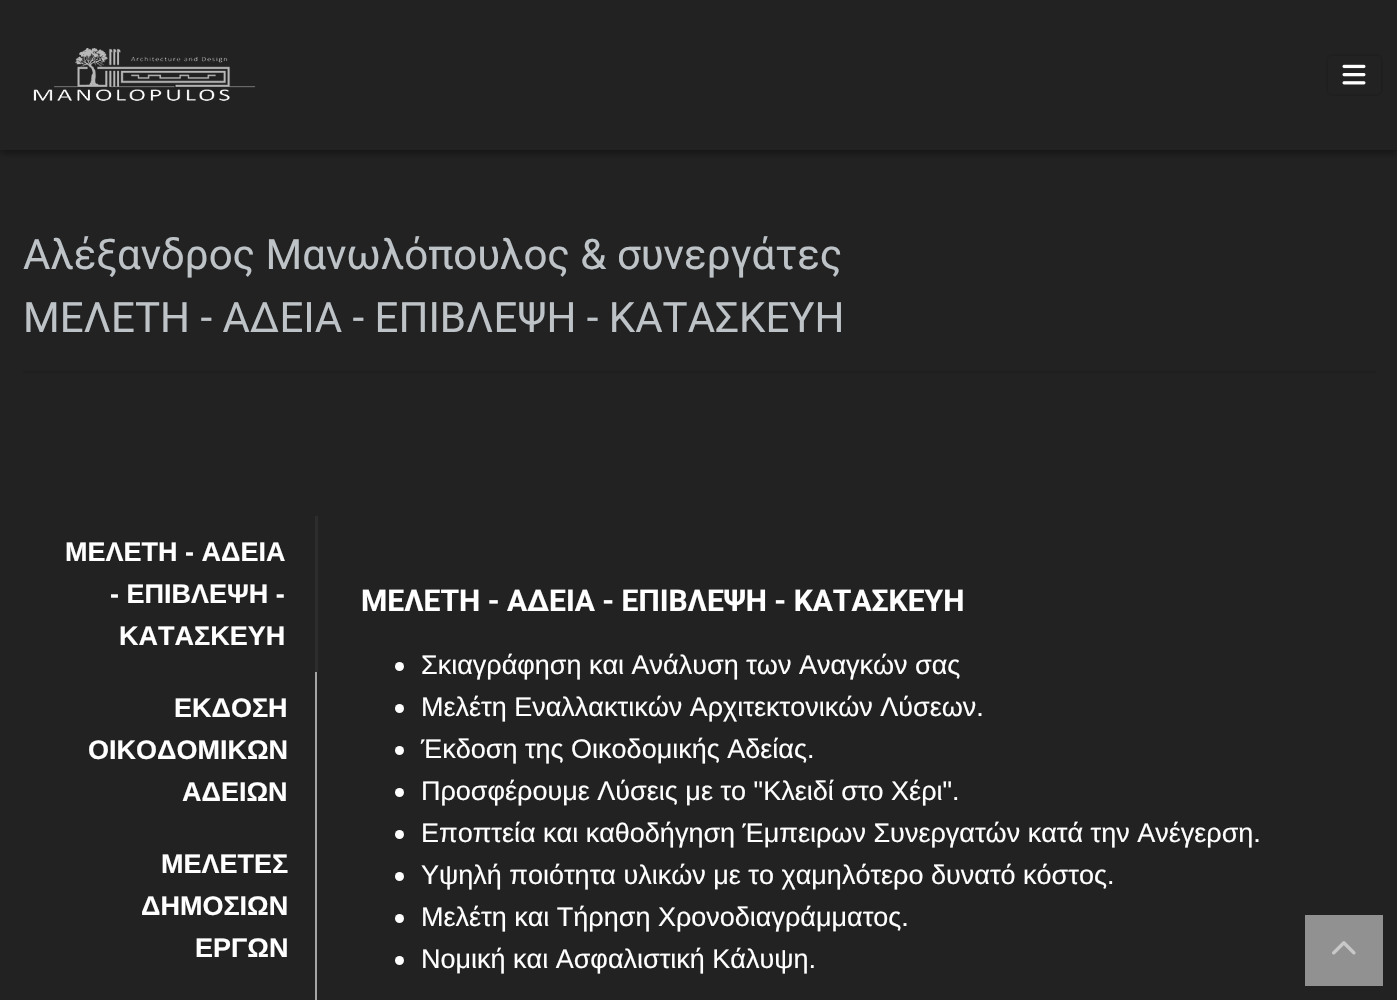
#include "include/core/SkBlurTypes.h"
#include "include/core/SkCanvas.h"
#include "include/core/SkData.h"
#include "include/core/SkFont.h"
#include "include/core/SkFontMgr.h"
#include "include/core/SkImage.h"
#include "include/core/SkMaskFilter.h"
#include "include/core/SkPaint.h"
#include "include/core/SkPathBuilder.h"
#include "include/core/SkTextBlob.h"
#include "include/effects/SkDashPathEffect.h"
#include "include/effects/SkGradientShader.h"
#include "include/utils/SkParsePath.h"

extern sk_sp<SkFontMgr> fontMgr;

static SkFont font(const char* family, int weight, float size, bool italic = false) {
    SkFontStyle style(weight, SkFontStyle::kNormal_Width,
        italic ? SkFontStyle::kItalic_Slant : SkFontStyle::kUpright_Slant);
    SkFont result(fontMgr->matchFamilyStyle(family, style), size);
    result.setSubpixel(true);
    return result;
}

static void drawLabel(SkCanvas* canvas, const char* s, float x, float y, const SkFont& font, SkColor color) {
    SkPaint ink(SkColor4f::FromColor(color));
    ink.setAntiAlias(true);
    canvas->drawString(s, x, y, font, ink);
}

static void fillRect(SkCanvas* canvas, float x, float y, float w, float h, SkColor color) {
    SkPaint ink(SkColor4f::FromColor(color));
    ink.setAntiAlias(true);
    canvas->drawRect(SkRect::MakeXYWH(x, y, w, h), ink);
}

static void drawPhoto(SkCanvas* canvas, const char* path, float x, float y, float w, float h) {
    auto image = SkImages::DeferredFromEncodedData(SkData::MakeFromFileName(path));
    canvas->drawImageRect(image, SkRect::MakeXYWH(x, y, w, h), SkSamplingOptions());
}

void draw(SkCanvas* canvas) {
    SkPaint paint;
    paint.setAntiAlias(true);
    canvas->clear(0xFF222222);
    canvas->save();
    canvas->clipRect(SkRect::MakeXYWH(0, 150, 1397, 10));
    paint.setColor(0x6E000000);
    paint.setMaskFilter(SkMaskFilter::MakeBlur(kNormal_SkBlurStyle, 4));
    canvas->drawRect(SkRect::MakeXYWH(0, 3, 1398, 150), paint);
    paint.setMaskFilter(nullptr);
    canvas->restore();
    drawPhoto(canvas, "assets/img1.png", 33, 48, 223, 53);
    paint.setStroke(true);
    paint.setStrokeWidth(2);
    paint.setColor(0xFF1F1F1F);
    canvas->drawRoundRect(SkRect::MakeXYWH(1327, 55, 55, 40), 5, 5, paint);
    drawPhoto(canvas, "assets/img2.png", 1342, 64, 24, 21);
    SkFont font1 = font("Roboto", 400, 42);
    drawLabel(canvas, "Αλέξανδρος Μανωλόπουλος & συνεργάτες", 23, 269, font1, 0xFFBDC3C7);
    drawLabel(canvas, "ΜΕΛΕΤΗ - ΑΔΕΙΑ - ΕΠΙΒΛΕΨΗ - ΚΑΤΑΣΚΕΥΗ", 23, 332, font1, 0xFFBDC3C7);
    fillRect(canvas, 23, 371, 1353, 2, 0xFF1F1F1F);
    fillRect(canvas, 315, 672, 2, 328, 0xFFA5A5A5);
    fillRect(canvas, 315, 516, 3, 156, 0xFF2D2D2D);
    SkFont font2 = font("Liberation Sans", 700, 27);
    drawLabel(canvas, "ΜΕΛΕΤΗ - ΑΔΕΙΑ", 65, 561, font2, 0xFFFFFFFF);
    drawLabel(canvas, "- ΕΠΙΒΛΕΨΗ -", 110, 603, font2, 0xFFFFFFFF);
    drawLabel(canvas, "ΚΑΤΑΣΚΕΥΗ", 119, 645, font2, 0xFFFFFFFF);
    drawLabel(canvas, "ΕΚΔΟΣΗ", 174, 717, font2, 0xFFFFFFFF);
    drawLabel(canvas, "ΟΙΚΟΔΟΜΙΚΩΝ", 88, 759, font2, 0xFFFFFFFF);
    drawLabel(canvas, "ΑΔΕΙΩΝ", 182, 801, font2, 0xFFFFFFFF);
    drawLabel(canvas, "ΜΕΛΕΤΕΣ", 161, 873, font2, 0xFFFFFFFF);
    drawLabel(canvas, "ΔΗΜΟΣΙΩΝ", 141, 915, font2, 0xFFFFFFFF);
    drawLabel(canvas, "ΕΡΓΩΝ", 195, 957, font2, 0xFFFFFFFF);
    SkFont font3 = font("Roboto", 700, 30);
    drawLabel(canvas, "ΜΕΛΕΤΗ - ΑΔΕΙΑ - ΕΠΙΒΛΕΨΗ - ΚΑΤΑΣΚΕΥΗ", 361, 611, font3, 0xFFFFFFFF);
    paint.setStroke(false);
    paint.setColor(0xFFFFFFFF);
    canvas->drawCircle(399.5f, 666.5f, 4.5f, paint);
    SkFont font4 = font("Liberation Sans", 400, 27);
    drawLabel(canvas, "Σκιαγράφηση και Ανάλυση των Αναγκών σας", 421, 674, font4, 0xFFFFFFFF);
    canvas->drawCircle(399.5f, 708.5f, 4.5f, paint);
    drawLabel(canvas, "Μελέτη Εναλλακτικών Αρχιτεκτονικών Λύσεων.", 421, 716, font4, 0xFFFFFFFF);
    canvas->drawCircle(399.5f, 750.5f, 4.5f, paint);
    drawLabel(canvas, "Έκδοση της Οικοδομικής Αδείας.", 421, 758, font4, 0xFFFFFFFF);
    canvas->drawCircle(399.5f, 792.5f, 4.5f, paint);
    drawLabel(canvas, "Προσφέρουμε Λύσεις με το \"Κλειδί στο Χέρι\".", 421, 800, font4, 0xFFFFFFFF);
    canvas->drawCircle(399.5f, 834.5f, 4.5f, paint);
    drawLabel(canvas, "Εποπτεία και καθοδήγηση Έμπειρων Συνεργατών κατά την Ανέγερση.", 421, 842, font4, 0xFFFFFFFF);
    canvas->drawCircle(399.5f, 876.5f, 4.5f, paint);
    drawLabel(canvas, "Υψηλή ποιότητα υλικών με το χαμηλότερο δυνατό κόστος.", 421, 884, font4, 0xFFFFFFFF);
    canvas->drawCircle(399.5f, 918.5f, 4.5f, paint);
    drawLabel(canvas, "Μελέτη και Τήρηση Χρονοδιαγράμματος.", 421, 926, font4, 0xFFFFFFFF);
    canvas->drawCircle(399.5f, 960.5f, 4.5f, paint);
    drawLabel(canvas, "Νομική και Ασφαλιστική Κάλυψη.", 421, 968, font4, 0xFFFFFFFF);
    fillRect(canvas, 1305, 915, 78, 71, 0xFF919191);
    drawPhoto(canvas, "assets/img3.png", 1332, 941, 24, 14);
}
